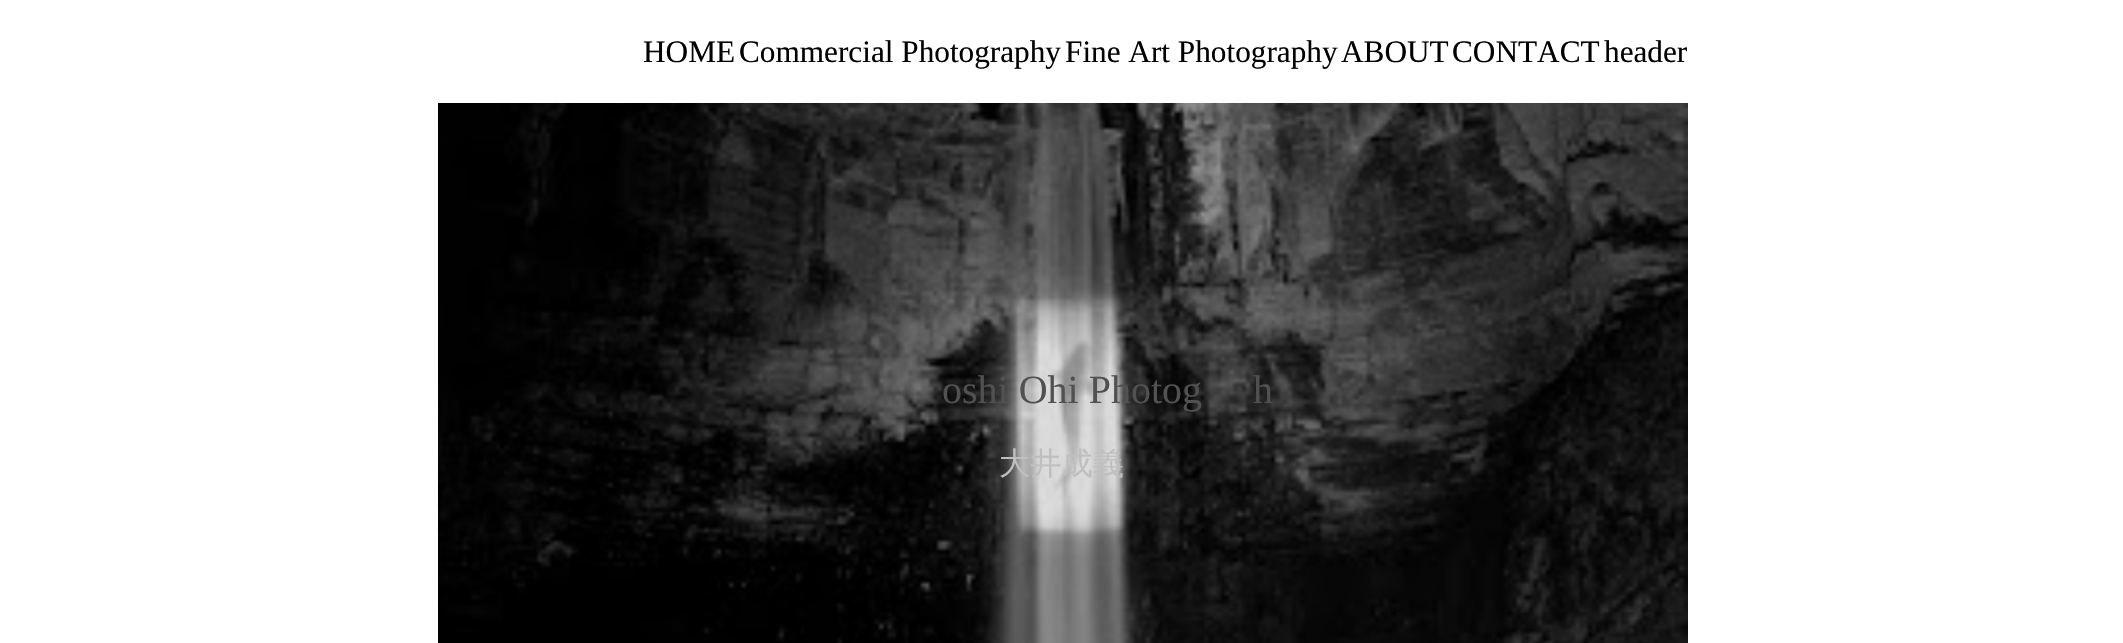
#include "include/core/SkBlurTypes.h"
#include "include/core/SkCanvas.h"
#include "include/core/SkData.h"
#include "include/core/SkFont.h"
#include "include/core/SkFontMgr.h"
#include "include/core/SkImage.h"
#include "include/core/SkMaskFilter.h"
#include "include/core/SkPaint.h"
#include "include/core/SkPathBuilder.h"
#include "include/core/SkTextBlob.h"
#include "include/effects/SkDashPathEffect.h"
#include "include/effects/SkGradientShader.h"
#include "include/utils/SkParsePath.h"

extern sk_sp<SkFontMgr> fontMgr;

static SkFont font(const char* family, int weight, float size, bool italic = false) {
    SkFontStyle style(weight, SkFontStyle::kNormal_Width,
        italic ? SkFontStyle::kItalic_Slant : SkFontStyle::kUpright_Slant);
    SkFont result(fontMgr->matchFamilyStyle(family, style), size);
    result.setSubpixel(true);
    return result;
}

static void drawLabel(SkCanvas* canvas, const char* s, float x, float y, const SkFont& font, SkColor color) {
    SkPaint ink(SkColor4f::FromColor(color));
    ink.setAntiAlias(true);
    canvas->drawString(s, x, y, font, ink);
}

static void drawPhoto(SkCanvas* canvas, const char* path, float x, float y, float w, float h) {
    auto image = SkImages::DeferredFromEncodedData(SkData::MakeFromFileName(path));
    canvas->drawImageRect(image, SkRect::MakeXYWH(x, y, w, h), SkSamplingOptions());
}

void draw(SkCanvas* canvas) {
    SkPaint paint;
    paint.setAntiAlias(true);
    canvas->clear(0xFFFFFFFF);
    SkFont font1 = font("Liberation Serif", 400, 31.25f);
    drawLabel(canvas, "HOME", 643, 62, font1, 0xFF000000);
    drawLabel(canvas, "Commercial Photography", 739, 62, font1, 0xFF000000);
    drawLabel(canvas, "Fine Art Photography", 1065, 62, font1, 0xFF000000);
    drawLabel(canvas, "ABOUT", 1341, 62, font1, 0xFF000000);
    drawLabel(canvas, "CONTACT", 1452, 62, font1, 0xFF000000);
    drawLabel(canvas, "header", 1604, 62, font1, 0xFF000000);
    drawPhoto(canvas, "assets/img1.png", 438, 103, 1250, 540);
    SkFont font2 = font("Liberation Serif", 400, 40);
    drawLabel(canvas, "oshi Ohi Photog", 942, 403, font2, 0xFF515151);
    drawLabel(canvas, "h", 1253, 403, font2, 0xFF515151);
    SkFont font3 = font("WenQuanYi Zen Hei", 500, 31.25f);
    drawLabel(canvas, "大井成義", 999, 474, font3, 0xFFBFBFBF);
}
